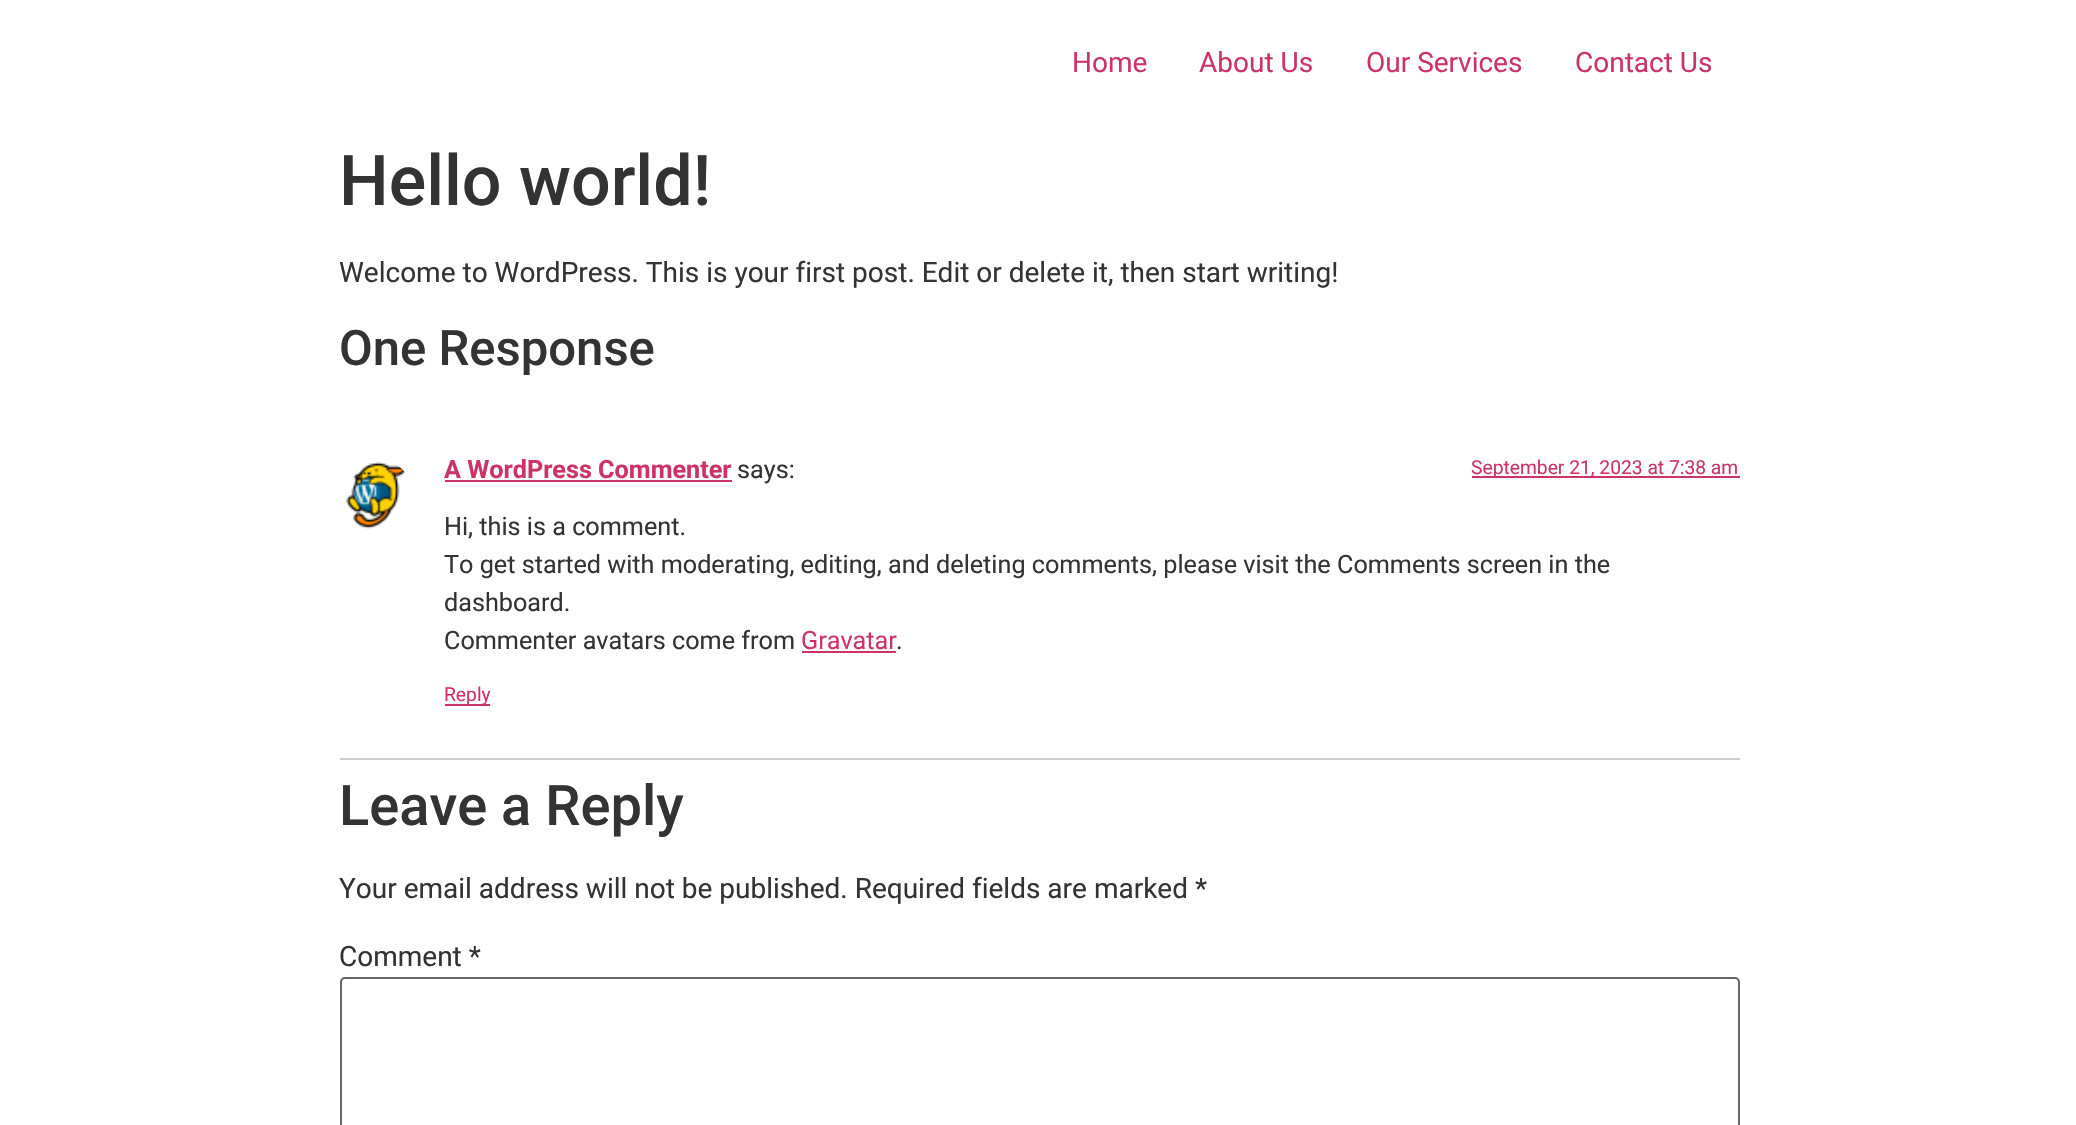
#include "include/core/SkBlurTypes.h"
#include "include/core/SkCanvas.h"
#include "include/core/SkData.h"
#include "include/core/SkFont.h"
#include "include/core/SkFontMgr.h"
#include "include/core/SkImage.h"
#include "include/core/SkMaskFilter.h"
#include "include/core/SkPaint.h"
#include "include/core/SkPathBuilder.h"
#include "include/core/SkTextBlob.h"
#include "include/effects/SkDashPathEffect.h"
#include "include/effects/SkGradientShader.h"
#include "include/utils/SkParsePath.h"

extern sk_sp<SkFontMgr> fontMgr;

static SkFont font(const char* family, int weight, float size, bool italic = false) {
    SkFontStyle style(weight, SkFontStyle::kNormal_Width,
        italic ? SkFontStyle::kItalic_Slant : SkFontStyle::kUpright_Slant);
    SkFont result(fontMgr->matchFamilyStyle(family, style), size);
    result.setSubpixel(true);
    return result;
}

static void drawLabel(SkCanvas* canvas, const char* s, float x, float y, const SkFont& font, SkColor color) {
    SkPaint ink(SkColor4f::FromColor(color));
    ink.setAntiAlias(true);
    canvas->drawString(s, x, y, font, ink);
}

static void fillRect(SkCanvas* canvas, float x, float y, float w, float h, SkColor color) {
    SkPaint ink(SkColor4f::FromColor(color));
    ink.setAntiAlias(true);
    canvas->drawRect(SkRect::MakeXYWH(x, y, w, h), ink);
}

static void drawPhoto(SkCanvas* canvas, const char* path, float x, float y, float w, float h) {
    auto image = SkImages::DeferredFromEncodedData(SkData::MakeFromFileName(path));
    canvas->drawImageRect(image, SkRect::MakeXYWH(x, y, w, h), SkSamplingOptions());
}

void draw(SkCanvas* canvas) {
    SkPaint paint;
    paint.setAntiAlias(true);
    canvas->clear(0xFFFFFFFF);
    SkFont font1 = font("Roboto", 400, 28);
    drawLabel(canvas, "Home", 1072, 72, font1, 0xFFCC3366);
    drawLabel(canvas, "About Us", 1199, 72, font1, 0xFFCC3366);
    drawLabel(canvas, "Our Services", 1366, 72, font1, 0xFFCC3366);
    drawLabel(canvas, "Contact Us", 1575, 72, font1, 0xFFCC3366);
    SkFont font2 = font("Roboto", 500, 70);
    drawLabel(canvas, "Hello world!", 339, 205, font2, 0xFF333333);
    drawLabel(canvas, "Welcome to WordPress. This is your first post. Edit or delete it, then start writing!", 339, 282, font1, 0xFF333333);
    SkFont font3 = font("Roboto", 500, 49);
    drawLabel(canvas, "One Response", 339, 365, font3, 0xFF333333);
    fillRect(canvas, 340, 758, 1400, 2, 0xFFCCCCCC);
    drawPhoto(canvas, "assets/img1.png", 346, 461, 59, 68);
    SkFont font4 = font("Roboto", 700, 25.2f);
    drawLabel(canvas, "A WordPress Commenter", 444, 478, font4, 0xFFCC3366);
    fillRect(canvas, 445, 480, 287, 2, 0xFFCC3366);
    SkFont font5 = font("Roboto", 400, 25.2f);
    drawLabel(canvas, "says:", 737, 478, font5, 0xFF333333);
    fillRect(canvas, 1472, 476, 268, 2, 0xFFCC3366);
    SkFont font6 = font("Roboto", 400, 19.25f);
    drawLabel(canvas, "September 21, 2023 at 7:38 am", 1471, 474, font6, 0xFFCC3366);
    drawLabel(canvas, "Hi, this is a comment.", 444, 535, font5, 0xFF333333);
    drawLabel(canvas, "To get started with moderating, editing, and deleting comments, please visit the Comments screen in the", 444, 573, font5, 0xFF333333);
    drawLabel(canvas, "dashboard.", 444, 611, font5, 0xFF333333);
    drawLabel(canvas, "Commenter avatars come from", 444, 649, font5, 0xFF333333);
    drawLabel(canvas, "Gravatar", 801, 649, font5, 0xFFCC3366);
    fillRect(canvas, 802, 651, 94, 2, 0xFFCC3366);
    drawLabel(canvas, ".", 896, 649, font5, 0xFF333333);
    fillRect(canvas, 445, 704, 45, 2, 0xFFCC3366);
    drawLabel(canvas, "Reply", 444, 701, font6, 0xFFCC3366);
    SkFont font7 = font("Roboto", 500, 56);
    drawLabel(canvas, "Leave a Reply", 339, 825, font7, 0xFF333333);
    drawLabel(canvas, "Your email address will not be published. Required fields are marked *", 339, 898, font1, 0xFF333333);
    drawLabel(canvas, "Comment *", 339, 966, font1, 0xFF333333);
    paint.setStroke(true);
    paint.setStrokeWidth(2);
    paint.setColor(0xFF666666);
    canvas->drawRoundRect(SkRect::MakeXYWH(341, 978, 1398, 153), 4, 4, paint);
}
